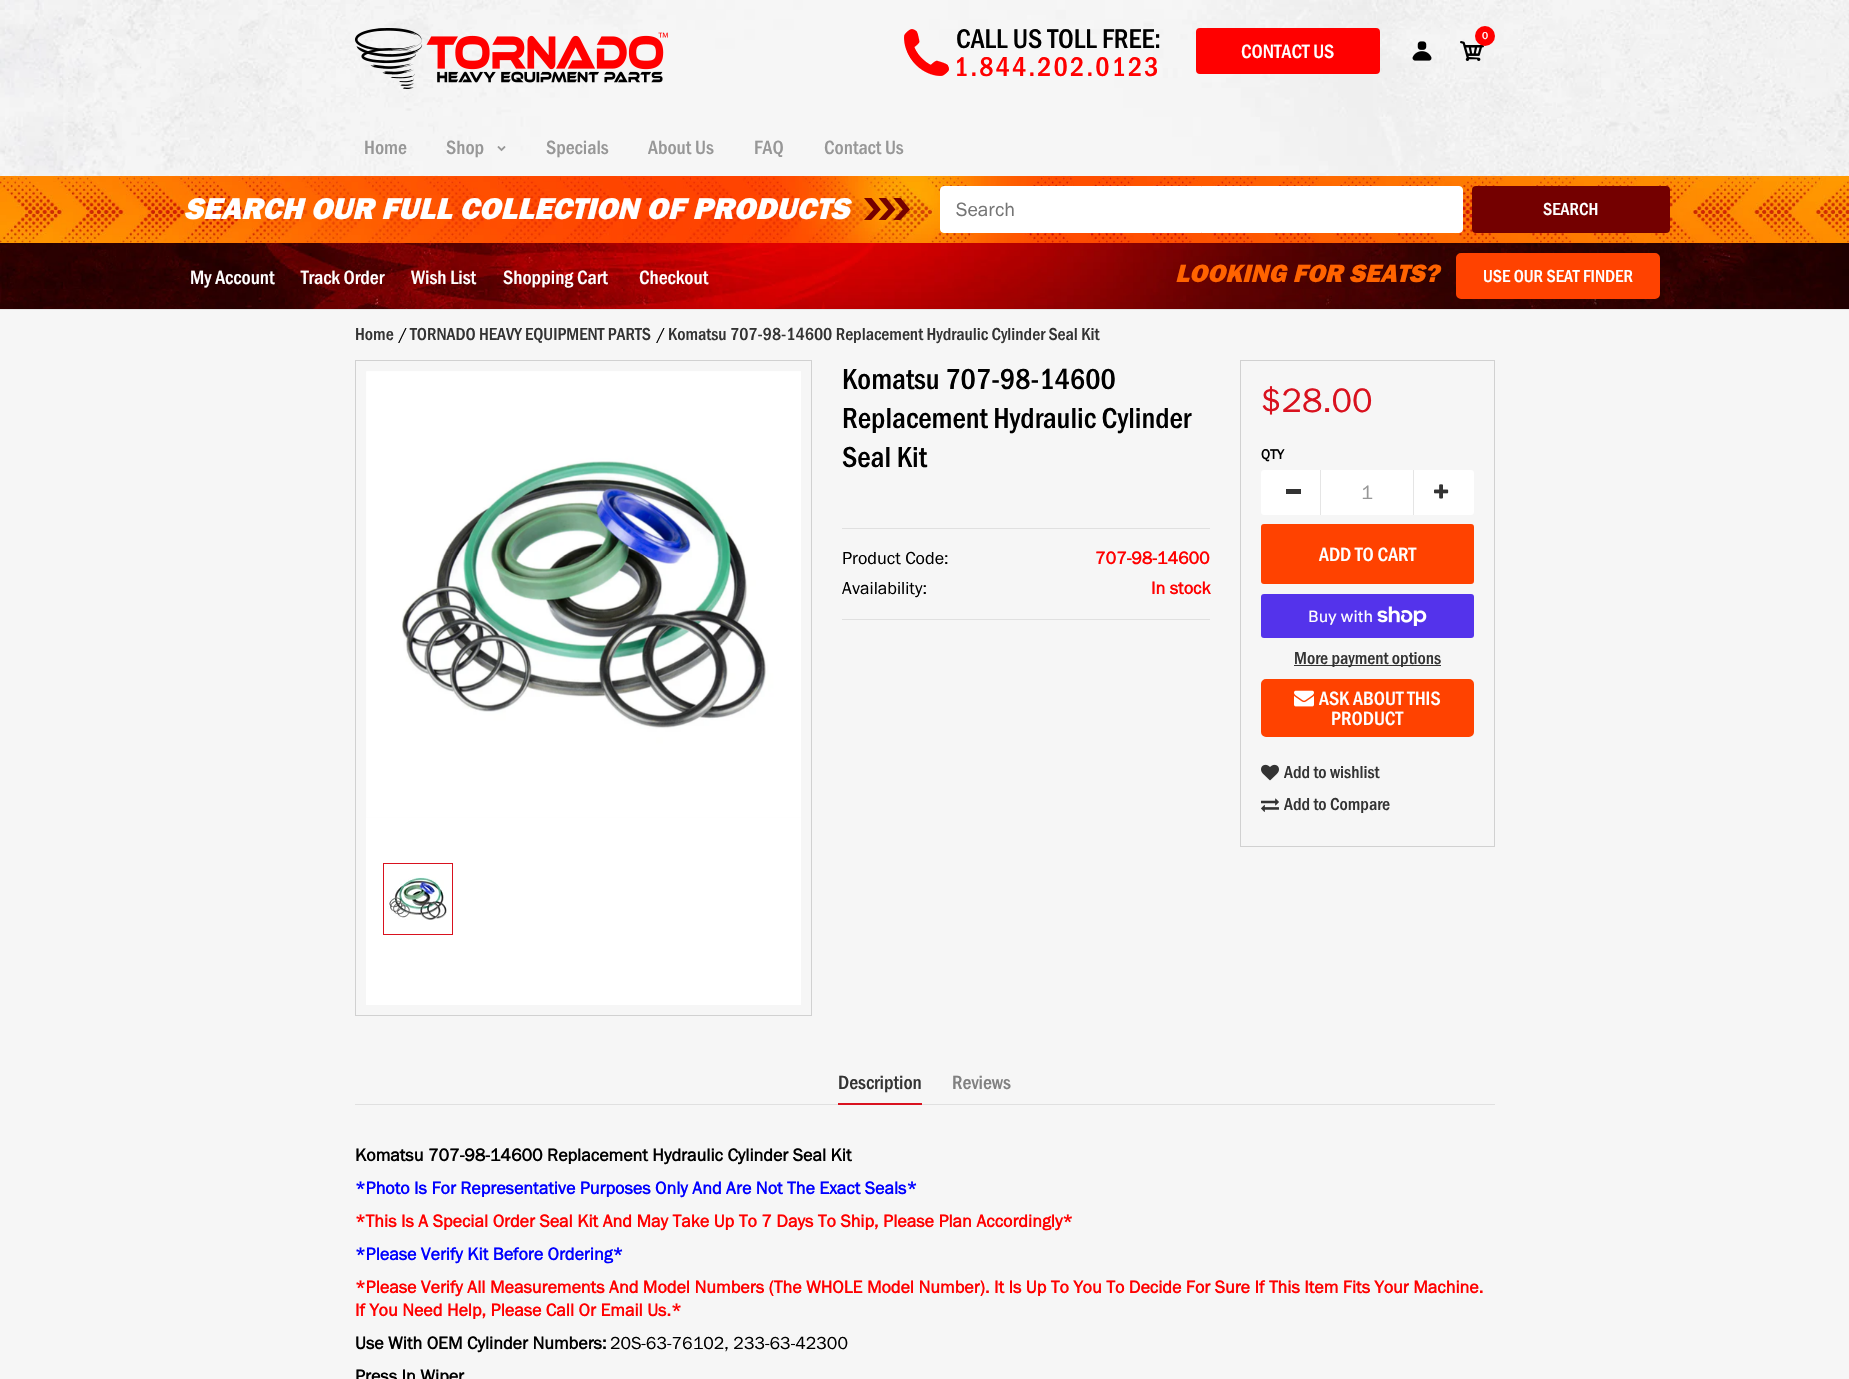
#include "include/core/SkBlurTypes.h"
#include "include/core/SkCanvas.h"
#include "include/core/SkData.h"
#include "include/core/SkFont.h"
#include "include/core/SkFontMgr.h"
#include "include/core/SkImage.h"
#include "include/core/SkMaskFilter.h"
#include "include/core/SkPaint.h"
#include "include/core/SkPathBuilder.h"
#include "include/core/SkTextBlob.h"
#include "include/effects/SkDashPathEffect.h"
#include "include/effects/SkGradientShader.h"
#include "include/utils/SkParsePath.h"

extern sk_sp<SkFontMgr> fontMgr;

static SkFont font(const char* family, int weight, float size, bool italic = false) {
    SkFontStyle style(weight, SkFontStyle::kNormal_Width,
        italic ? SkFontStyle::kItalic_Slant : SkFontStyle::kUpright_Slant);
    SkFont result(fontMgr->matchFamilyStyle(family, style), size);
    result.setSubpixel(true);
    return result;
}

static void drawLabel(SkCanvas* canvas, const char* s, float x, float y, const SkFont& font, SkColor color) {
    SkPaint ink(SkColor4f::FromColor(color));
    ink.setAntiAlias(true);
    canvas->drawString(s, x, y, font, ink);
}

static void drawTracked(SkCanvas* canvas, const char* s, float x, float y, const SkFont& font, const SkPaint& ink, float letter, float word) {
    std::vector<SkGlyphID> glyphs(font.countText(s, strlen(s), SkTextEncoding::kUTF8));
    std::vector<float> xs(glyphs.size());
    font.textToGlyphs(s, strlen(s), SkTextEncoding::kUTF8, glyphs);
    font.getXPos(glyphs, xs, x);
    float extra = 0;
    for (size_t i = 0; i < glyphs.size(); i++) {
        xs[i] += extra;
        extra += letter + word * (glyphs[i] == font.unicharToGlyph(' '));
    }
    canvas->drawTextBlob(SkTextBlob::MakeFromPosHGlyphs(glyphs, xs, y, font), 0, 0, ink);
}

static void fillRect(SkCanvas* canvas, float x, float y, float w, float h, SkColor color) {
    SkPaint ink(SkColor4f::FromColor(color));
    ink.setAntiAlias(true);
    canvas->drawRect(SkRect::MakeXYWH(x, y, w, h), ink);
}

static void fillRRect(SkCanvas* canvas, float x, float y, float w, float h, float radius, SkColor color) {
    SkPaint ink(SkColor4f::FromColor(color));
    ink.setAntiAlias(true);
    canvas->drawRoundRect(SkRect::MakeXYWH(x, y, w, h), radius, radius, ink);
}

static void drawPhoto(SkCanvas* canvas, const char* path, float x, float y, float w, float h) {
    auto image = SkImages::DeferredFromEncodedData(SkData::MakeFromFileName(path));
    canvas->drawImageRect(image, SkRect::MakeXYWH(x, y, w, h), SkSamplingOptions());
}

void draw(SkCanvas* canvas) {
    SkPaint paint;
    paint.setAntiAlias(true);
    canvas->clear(0xFFF6F6F6);
    drawPhoto(canvas, "assets/img1.png", 0, 0, 1849, 176);
    drawPhoto(canvas, "assets/img2.png", 355, 28, 313, 61);
    drawPhoto(canvas, "assets/img3.png", 904, 29, 45, 47);
    SkFont font1 = font("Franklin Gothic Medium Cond", 500, 28);
    drawLabel(canvas, "CALL US TOLL FREE:", 956, 48, font1, 0xFF000000);
    paint.setColor(0xFFFF0000);
    drawTracked(canvas, "1.844.202.0123", 954, 76, font1, paint, 2.1f, 0);
    canvas->drawRoundRect(SkRect::MakeXYWH(1197, 29, 182, 44), 3, 3, paint);
    paint.setStroke(true);
    paint.setStrokeWidth(2);
    canvas->drawRoundRect(SkRect::MakeXYWH(1197, 29, 182, 44), 3, 3, paint);
    SkFont font2 = font("Franklin Gothic Medium Cond", 500, 20);
    drawLabel(canvas, "CONTACT US", 1241, 58, font2, 0xFFFFFFFF);
    drawPhoto(canvas, "assets/img4.png", 1460, 41, 24, 20);
    paint.setStroke(false);
    canvas->drawCircle(1485, 36, 10, paint);
    SkFont font3 = font("Franklin Gothic", 700, 10);
    drawLabel(canvas, "0", 1482, 39, font3, 0xFFFFFFFF);
    drawPhoto(canvas, "assets/img5.png", 1412, 41, 20, 20);
    drawLabel(canvas, "Home", 364, 154, font2, 0xFF979797);
    drawLabel(canvas, "Shop", 446, 154, font2, 0xFF979797);
    drawPhoto(canvas, "assets/img6.png", 497, 146, 9, 6);
    drawLabel(canvas, "Specials", 546, 154, font2, 0xFF979797);
    drawLabel(canvas, "About Us", 648, 154, font2, 0xFF979797);
    drawLabel(canvas, "FAQ", 754, 154, font2, 0xFF979797);
    drawLabel(canvas, "Contact Us", 824, 154, font2, 0xFF979797);
    drawPhoto(canvas, "assets/img7.png", 0, 176, 1849, 67);
    drawPhoto(canvas, "assets/img8.png", 864, 198, 46, 22);
    SkFont font4 = font("Franklin Gothic", 900, 31, true);
    drawLabel(canvas, "SEARCH OUR FULL COLLECTION OF PRODUCTS", 184, 219, font4, 0xFFFFFFFF);
    paint.setColor(0xFFFFFFFF);
    canvas->drawRoundRect(SkRect::MakeXYWH(940.5f, 186.5f, 522, 46), 3.5f, 3.5f, paint);
    paint.setStroke(true);
    paint.setStrokeWidth(1);
    canvas->drawRoundRect(SkRect::MakeXYWH(940.5f, 186.5f, 522, 46), 3.5f, 3.5f, paint);
    SkFont font5 = font("Franklin Gothic", 400, 20);
    drawLabel(canvas, "Search", 956, 216, font5, 0xFF757575);
    fillRRect(canvas, 1472, 186, 198, 47, 4, 0xFF740000);
    SkFont font6 = font("Franklin Gothic Medium Cond", 500, 18);
    drawLabel(canvas, "SEARCH", 1543, 215, font6, 0xFFFFFFFF);
    drawPhoto(canvas, "assets/img9.png", 0, 243, 1849, 66);
    drawLabel(canvas, "My Account", 190, 284, font2, 0xFFFFFFFF);
    drawLabel(canvas, "Track Order", 301, 284, font2, 0xFFFFFFFF);
    drawLabel(canvas, "Wish List", 411, 284, font2, 0xFFFFFFFF);
    drawLabel(canvas, "Shopping Cart", 503, 284, font2, 0xFFFFFFFF);
    drawLabel(canvas, "Checkout", 639, 284, font2, 0xFFFFFFFF);
    SkFont font7 = font("Franklin Gothic", 900, 26, true);
    drawLabel(canvas, "LOOKING FOR SEATS?", 1175, 282, font7, 0xFFFF6300);
    paint.setStroke(false);
    paint.setColor(0xFFFF4200);
    canvas->drawRoundRect(SkRect::MakeXYWH(1457, 254, 202, 44), 4, 4, paint);
    paint.setStroke(true);
    paint.setStrokeWidth(2);
    canvas->drawRoundRect(SkRect::MakeXYWH(1457, 254, 202, 44), 4, 4, paint);
    drawLabel(canvas, "USE OUR SEAT FINDER", 1483, 282, font6, 0xFFFFFFFF);
    fillRect(canvas, 0, 309, 1849, 1, 0xFFE5E5E5);
    drawLabel(canvas, "Home", 355, 340, font6, 0xFF333333);
    SkFont font8 = font("Franklin Gothic", 400, 18);
    drawLabel(canvas, "/", 399, 340, font8, 0xFF000000);
    drawLabel(canvas, "TORNADO HEAVY EQUIPMENT PARTS", 410, 340, font6, 0xFF333333);
    drawLabel(canvas, "/", 657, 340, font8, 0xFF000000);
    drawLabel(canvas, "Komatsu 707-98-14600 Replacement Hydraulic Cylinder Seal Kit", 668, 340, font6, 0xFF333333);
    paint.setStrokeWidth(1);
    paint.setColor(0xFFD1D1D1);
    canvas->drawRect(SkRect::MakeXYWH(355.5f, 360.5f, 456, 655), paint);
    drawPhoto(canvas, "assets/img10.png", 366, 371, 435, 447);
    fillRect(canvas, 366, 818, 435, 187, 0xFFFFFFFF);
    paint.setColor(0xFFD9121F);
    canvas->drawRect(SkRect::MakeXYWH(383.5f, 863.5f, 69, 71), paint);
    drawPhoto(canvas, "assets/img11.png", 388, 877, 59, 43);
    SkFont font9 = font("Franklin Gothic Medium Cond", 500, 30);
    drawLabel(canvas, "Komatsu 707-98-14600", 842, 389, font9, 0xFF000000);
    drawLabel(canvas, "Replacement Hydraulic Cylinder", 842, 428, font9, 0xFF000000);
    drawLabel(canvas, "Seal Kit", 842, 467, font9, 0xFF000000);
    fillRect(canvas, 842, 528, 368, 1, 0xFFE0E0E0);
    fillRect(canvas, 842, 619, 368, 1, 0xFFE0E0E0);
    drawLabel(canvas, "Product Code:", 842, 564, font8, 0xFF000000);
    SkFont font10 = font("Franklin Gothic", 700, 18);
    drawLabel(canvas, "707-98-14600", 1095, 564, font10, 0xFFFF0000);
    drawLabel(canvas, "Availability:", 842, 594, font8, 0xFF000000);
    drawLabel(canvas, "In stock", 1151, 594, font10, 0xFFFF0000);
    paint.setColor(0xFFD1D1D1);
    canvas->drawRect(SkRect::MakeXYWH(1240.5f, 360.5f, 254, 486), paint);
    SkFont font11 = font("Franklin Gothic", 400, 35);
    drawLabel(canvas, "$28.00", 1261, 412, font11, 0xFFD9121F);
    SkFont font12 = font("Franklin Gothic", 700, 14);
    drawLabel(canvas, "QTY", 1261, 459, font12, 0xFF000000);
    fillRRect(canvas, 1261, 470, 213, 45, 3, 0xFFFFFFFF);
    fillRect(canvas, 1320, 470, 1, 45, 0xFFE5E5E5);
    fillRect(canvas, 1286, 489, 15, 5, 0xFF333333);
    drawLabel(canvas, "1", 1361, 499, font5, 0xFF979797);
    fillRect(canvas, 1413, 470, 1, 45, 0xFFE5E5E5);
    drawPhoto(canvas, "assets/img12.png", 1434, 484, 15, 15);
    paint.setStroke(false);
    paint.setColor(0xFFFF4200);
    canvas->drawRoundRect(SkRect::MakeXYWH(1262, 525, 211, 58), 2, 2, paint);
    paint.setStroke(true);
    paint.setStrokeWidth(2);
    canvas->drawRoundRect(SkRect::MakeXYWH(1262, 525, 211, 58), 2, 2, paint);
    drawLabel(canvas, "ADD TO CART", 1319, 561, font2, 0xFFFFFFFF);
    fillRRect(canvas, 1261, 594, 213, 44, 3, 0xFF5433EB);
    SkFont font13 = font("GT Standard", 400, 16);
    drawLabel(canvas, "Buy with", 1308, 622, font13, 0xFFFFFFFF);
    drawPhoto(canvas, "assets/img13.png", 1377, 606, 50, 20);
    fillRect(canvas, 1294, 665, 147, 1, 0xFF333333);
    drawLabel(canvas, "More payment options", 1294, 664, font6, 0xFF333333);
    paint.setStroke(false);
    canvas->drawRoundRect(SkRect::MakeXYWH(1262, 680, 211, 56), 4, 4, paint);
    paint.setStroke(true);
    canvas->drawRoundRect(SkRect::MakeXYWH(1262, 680, 211, 56), 4, 4, paint);
    drawPhoto(canvas, "assets/img14.png", 1294, 690, 20, 17);
    drawLabel(canvas, "ASK ABOUT THIS", 1319, 705, font2, 0xFFFFFFFF);
    drawLabel(canvas, "PRODUCT", 1331, 725, font2, 0xFFFFFFFF);
    drawPhoto(canvas, "assets/img15.png", 1261, 764, 18, 17);
    drawLabel(canvas, "Add to wishlist", 1284, 778, font6, 0xFF333333);
    drawPhoto(canvas, "assets/img16.png", 1261, 798, 18, 14);
    drawLabel(canvas, "Add to Compare", 1284, 810, font6, 0xFF333333);
    drawLabel(canvas, "Description", 838, 1089, font2, 0xFF333333);
    fillRect(canvas, 355, 1104, 1140, 1, 0xFFE0E0E0);
    fillRect(canvas, 838, 1103, 84, 2, 0xFFD9121F);
    drawLabel(canvas, "Reviews", 952, 1089, font2, 0xFF808080);
    drawLabel(canvas, "Komatsu 707-98-14600 Replacement Hydraulic Cylinder Seal Kit", 355, 1161, font10, 0xFF000000);
    drawLabel(canvas, "*Photo Is For Representative Purposes Only And Are Not The Exact Seals*", 355, 1194, font10, 0xFF0000FF);
    drawLabel(canvas, "*This Is A Special Order Seal Kit And May Take Up To 7 Days To Ship, Please Plan Accordingly*", 355, 1227, font10, 0xFFFF0000);
    drawLabel(canvas, "*Please Verify Kit Before Ordering*", 355, 1260, font10, 0xFF0000FF);
    drawLabel(canvas, "*Please Verify All Measurements And Model Numbers (The WHOLE Model Number). It Is Up To You To Decide For Sure If This Item Fits Your Machine.", 355, 1293, font10, 0xFFFF0000);
    drawLabel(canvas, "If You Need Help, Please Call Or Email Us.*", 355, 1316, font10, 0xFFFF0000);
    drawLabel(canvas, "Use With OEM Cylinder Numbers:", 355, 1349, font10, 0xFF000000);
    drawLabel(canvas, "20S-63-76102, 233-63-42300", 610, 1349, font8, 0xFF000000);
    drawLabel(canvas, "Press In Wiper", 355, 1382, font10, 0xFF000000);
}
